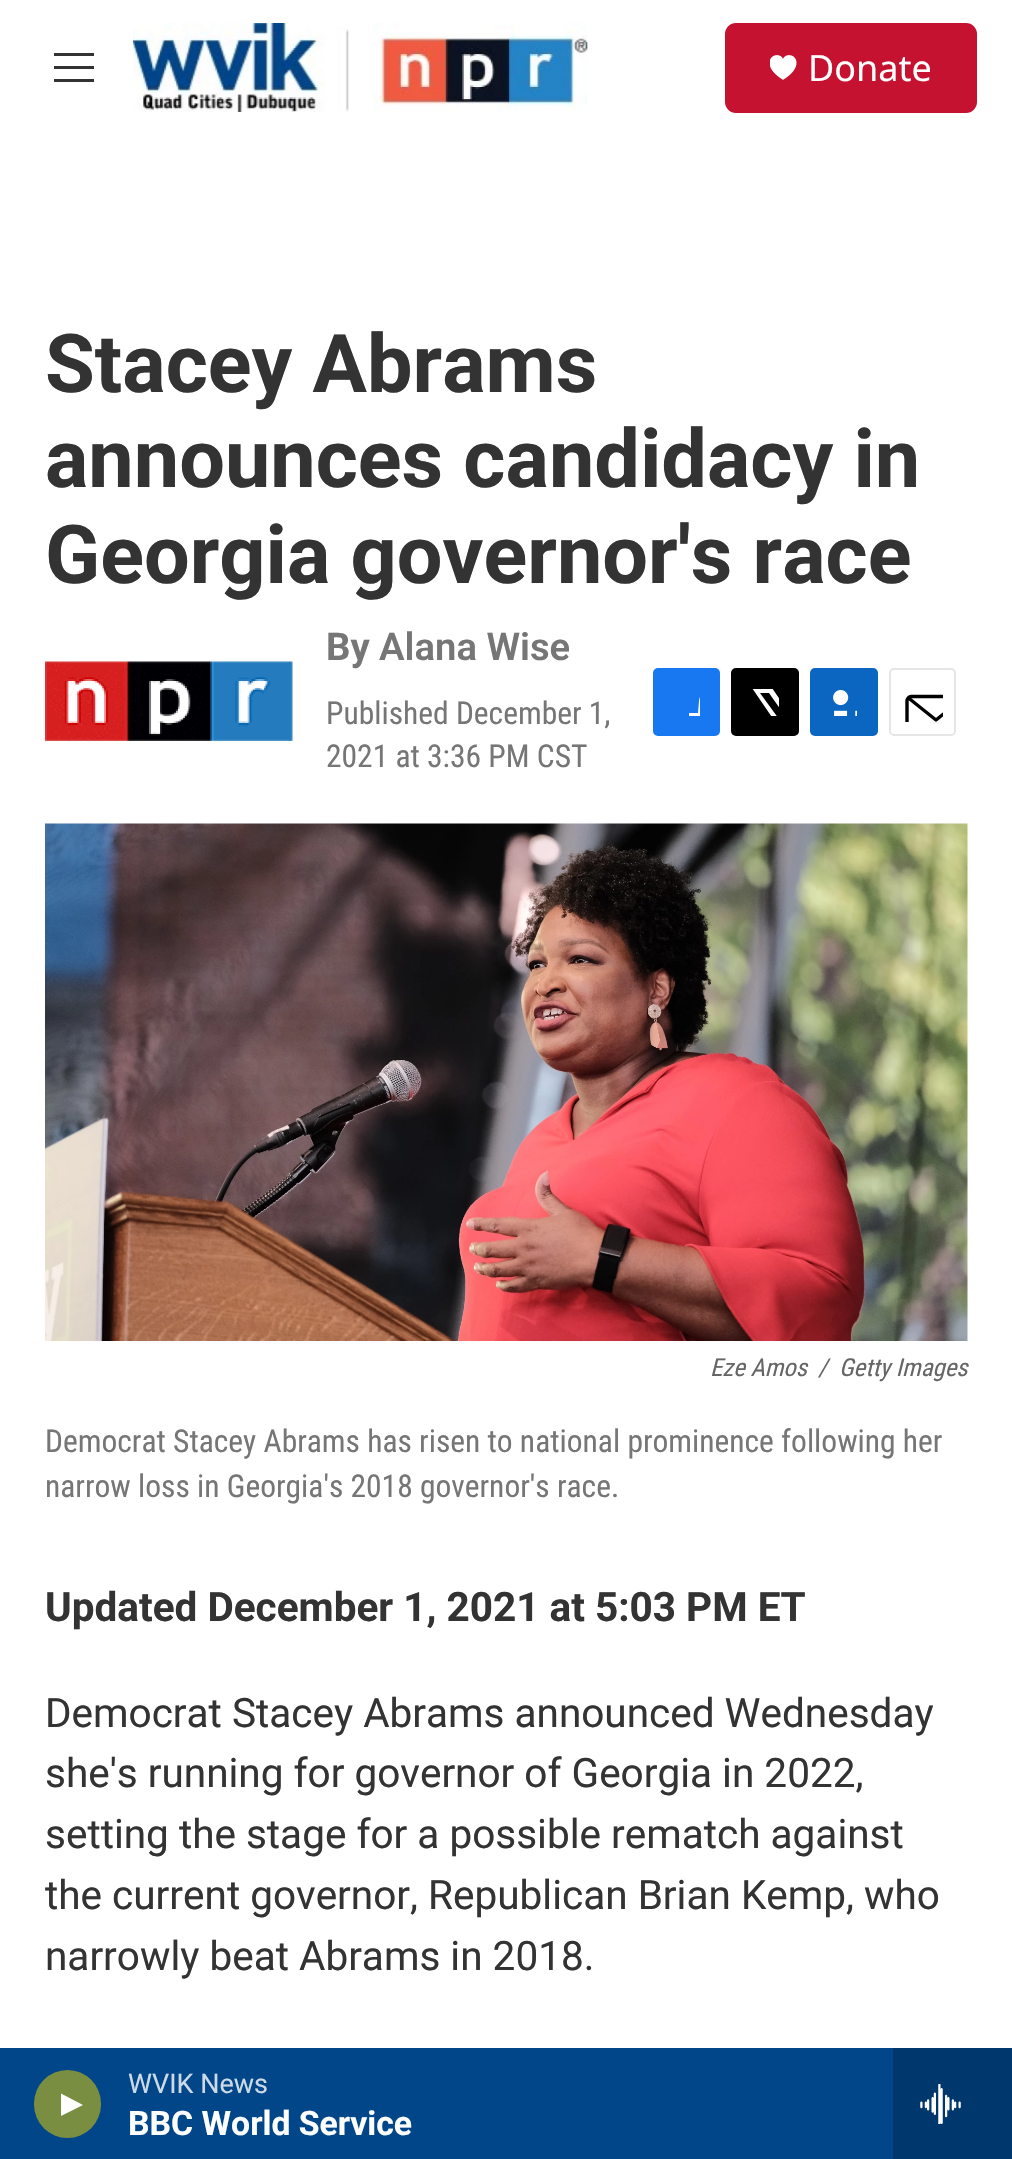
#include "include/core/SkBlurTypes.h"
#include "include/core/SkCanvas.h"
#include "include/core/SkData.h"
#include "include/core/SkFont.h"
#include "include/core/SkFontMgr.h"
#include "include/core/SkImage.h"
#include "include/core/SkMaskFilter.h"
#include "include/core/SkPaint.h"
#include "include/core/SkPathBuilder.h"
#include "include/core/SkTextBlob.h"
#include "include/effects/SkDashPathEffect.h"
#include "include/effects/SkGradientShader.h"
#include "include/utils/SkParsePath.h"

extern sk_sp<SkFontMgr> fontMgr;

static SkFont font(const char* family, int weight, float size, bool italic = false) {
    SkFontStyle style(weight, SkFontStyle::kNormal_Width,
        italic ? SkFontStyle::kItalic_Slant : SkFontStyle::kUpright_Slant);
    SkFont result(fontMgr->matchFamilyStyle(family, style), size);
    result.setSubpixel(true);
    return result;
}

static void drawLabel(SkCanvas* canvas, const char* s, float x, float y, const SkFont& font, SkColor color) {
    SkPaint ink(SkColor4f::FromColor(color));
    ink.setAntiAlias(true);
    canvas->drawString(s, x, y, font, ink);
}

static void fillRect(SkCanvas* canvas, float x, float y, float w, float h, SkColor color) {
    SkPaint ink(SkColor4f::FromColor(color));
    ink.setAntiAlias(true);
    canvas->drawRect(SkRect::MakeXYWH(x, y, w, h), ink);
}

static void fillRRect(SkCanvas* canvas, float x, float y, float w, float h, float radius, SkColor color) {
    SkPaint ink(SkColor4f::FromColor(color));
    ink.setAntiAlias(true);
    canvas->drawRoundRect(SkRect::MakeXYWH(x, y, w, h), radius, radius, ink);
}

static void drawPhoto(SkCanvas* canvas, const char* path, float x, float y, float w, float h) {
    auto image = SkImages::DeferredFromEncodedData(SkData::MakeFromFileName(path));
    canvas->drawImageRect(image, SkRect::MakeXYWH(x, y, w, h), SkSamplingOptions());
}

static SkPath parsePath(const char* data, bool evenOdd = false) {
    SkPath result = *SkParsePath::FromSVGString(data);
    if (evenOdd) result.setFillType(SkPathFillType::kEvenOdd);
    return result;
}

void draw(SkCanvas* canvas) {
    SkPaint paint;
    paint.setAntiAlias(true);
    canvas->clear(0xFFFFFFFF);
    paint.setColor(0xFF333333);
    canvas->drawPath(parsePath("M54 69V66H94V69ZM54 56V53H94V56ZM54 82V79H94V82Z", true), paint);
    drawPhoto(canvas, "assets/img1.png", 133, 23, 455, 89);
    fillRRect(canvas, 725, 23, 252, 90, 11, 0xFFC41230);
    drawPhoto(canvas, "assets/img2.png", 770, 55, 27, 25);
    SkFont font1 = font("Noto Sans", 400, 36);
    drawLabel(canvas, "Donate", 808, 81, font1, 0xFFFFFFFF);
    fillRect(canvas, 0, 2048, 893, 111, 0xFF004688);
    fillRRect(canvas, 34, 2070, 67, 68, 33.5f, 0xFF7A8E41);
    paint.setColor(0xFFFFFFFF);
    canvas->drawPath(parsePath("M61 2093.5L83 2105L61 2116Z"), paint);
    SkFont font2 = font("Roboto", 400, 27);
    drawLabel(canvas, "WVIK News", 128, 2093, font2, 0xFFCCDAE7);
    SkFont font3 = font("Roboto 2", 700, 33.75f);
    drawLabel(canvas, "BBC World Service", 128, 2135, font3, 0xFFFFFFFF);
    fillRect(canvas, 893, 2048, 119, 111, 0xFF00386D);
    drawPhoto(canvas, "assets/img3.png", 920, 2084, 41, 40);
    SkFont font4 = font("Roboto", 700, 81);
    drawLabel(canvas, "Stacey Abrams", 45, 392, font4, 0xFF333333);
    drawLabel(canvas, "announces candidacy in", 45, 487, font4, 0xFF333333);
    drawLabel(canvas, "Georgia governor's race", 45, 583, font4, 0xFF333333);
    drawPhoto(canvas, "assets/img4.png", 45, 661, 248, 82);
    SkFont font5 = font("Roboto", 700, 38.25f);
    drawLabel(canvas, "By", 326, 660, font5, 0xFF767676);
    SkFont font6 = font("Roboto", 600, 38.25f);
    drawLabel(canvas, "Alana Wise", 379, 660, font6, 0xFF767676);
    SkFont font7 = font("Roboto Condensed", 400, 31.5f);
    drawLabel(canvas, "Published December 1,", 326, 724, font7, 0xFF767676);
    drawLabel(canvas, "2021 at 3:36 PM CST", 326, 767, font7, 0xFF767676);
    fillRRect(canvas, 653, 668, 67, 68, 5, 0xFF1778F2);
    canvas->save();
    canvas->clipRect(SkRect::MakeXYWH(673, 689, 27, 27));
    canvas->drawPath(parsePath("M710 736H698V725H689V713H698L699 701C700 690 710 688 720 690V700C708 700 710 703 710 713H720V719L719 725H710Z"), paint);
    canvas->restore();
    fillRRect(canvas, 731, 668, 68, 68, 5, 0xFF000000);
    canvas->save();
    canvas->clipRect(SkRect::MakeXYWH(752, 689, 27, 27));
    canvas->drawPath(parsePath("M792 717L799 728C799 730 799 732 798 734L769 693H760L784 726L791 736H785L781 730L776 736H769L778 726L752 688H772L789 713L799 701V709Z"), paint);
    canvas->restore();
    fillRRect(canvas, 810, 668, 68, 68, 5, 0xFF0A66C1);
    drawPhoto(canvas, "assets/img5.png", 833, 690, 24, 26);
    paint.setStroke(true);
    paint.setStrokeWidth(2);
    paint.setColor(0xFFE6E6E6);
    canvas->drawRoundRect(SkRect::MakeXYWH(890, 669, 65, 66), 4, 4, paint);
    canvas->save();
    canvas->clipRect(SkRect::MakeXYWH(902, 682, 41, 40));
    paint.setStrokeWidth(3.4f);
    paint.setStrokeCap(SkPaint::kRound_Cap);
    paint.setStrokeJoin(SkPaint::kRound_Join);
    paint.setColor(0xFF000000);
    canvas->drawPath(parsePath("M965 731C965 733.5 963 735.5 961 735.5H911C909 735.5 907 733.5 907 731V701C907 698.5 909 696.5 911 696.5H961C963 696.5 965 698.5 965 701ZM963.5 698L936 720L908.5 698"), paint);
    canvas->restore();
    drawPhoto(canvas, "assets/img6.png", 45, 823, 923, 518);
    SkFont font8 = font("Roboto Condensed", 400, 24.75f, true);
    drawLabel(canvas, "Eze Amos", 710, 1376, font8, 0xFF666666);
    drawLabel(canvas, "/", 818, 1376, font8, 0xFF666666);
    drawLabel(canvas, "Getty Images", 839, 1376, font8, 0xFF666666);
    drawLabel(canvas, "Democrat Stacey Abrams has risen to national prominence following her", 45, 1452, font7, 0xFF767676);
    drawLabel(canvas, "narrow loss in Georgia's 2018 governor's race.", 45, 1497, font7, 0xFF767676);
    SkFont font9 = font("Roboto 2", 700, 40.5f);
    drawLabel(canvas, "Updated December 1, 2021 at 5:03 PM ET", 45, 1621, font9, 0xFF333333);
    SkFont font10 = font("Roboto", 400, 40.5f);
    drawLabel(canvas, "Democrat Stacey Abrams announced Wednesday", 45, 1727, font10, 0xFF333333);
    drawLabel(canvas, "she's running for governor of Georgia in 2022,", 45, 1787, font10, 0xFF333333);
    drawLabel(canvas, "setting the stage for a possible rematch against", 45, 1848, font10, 0xFF333333);
    drawLabel(canvas, "the current governor, Republican Brian Kemp, who", 45, 1909, font10, 0xFF333333);
    drawLabel(canvas, "narrowly beat Abrams in 2018.", 45, 1970, font10, 0xFF333333);
}
